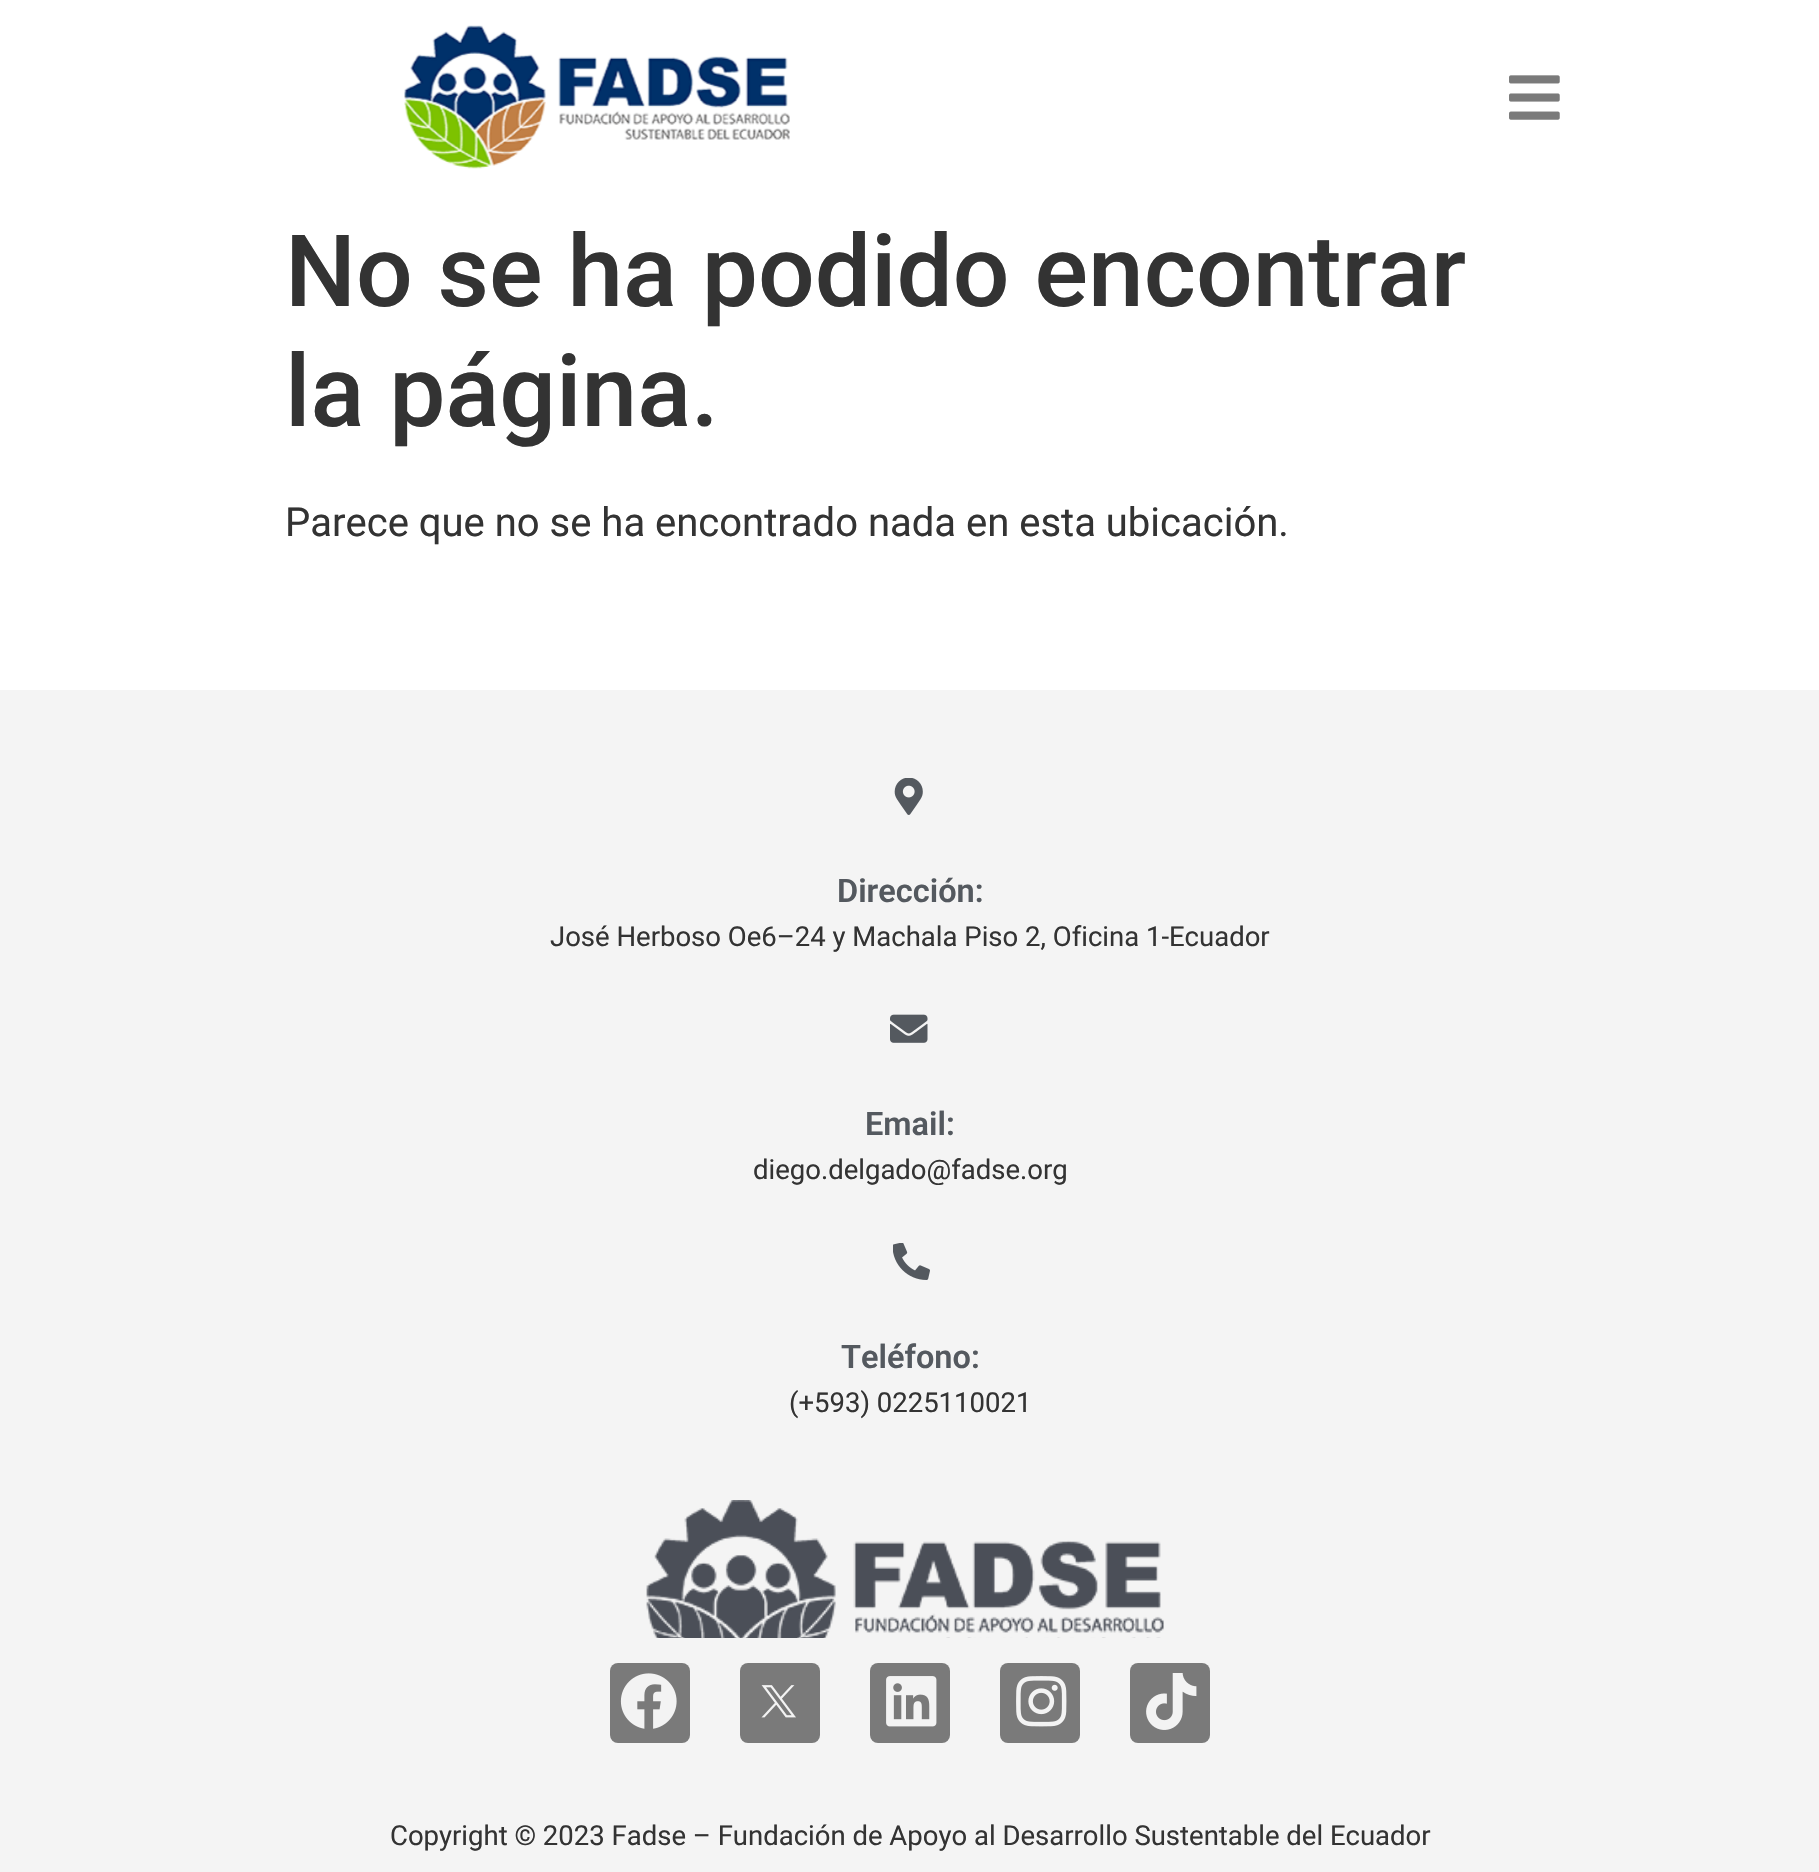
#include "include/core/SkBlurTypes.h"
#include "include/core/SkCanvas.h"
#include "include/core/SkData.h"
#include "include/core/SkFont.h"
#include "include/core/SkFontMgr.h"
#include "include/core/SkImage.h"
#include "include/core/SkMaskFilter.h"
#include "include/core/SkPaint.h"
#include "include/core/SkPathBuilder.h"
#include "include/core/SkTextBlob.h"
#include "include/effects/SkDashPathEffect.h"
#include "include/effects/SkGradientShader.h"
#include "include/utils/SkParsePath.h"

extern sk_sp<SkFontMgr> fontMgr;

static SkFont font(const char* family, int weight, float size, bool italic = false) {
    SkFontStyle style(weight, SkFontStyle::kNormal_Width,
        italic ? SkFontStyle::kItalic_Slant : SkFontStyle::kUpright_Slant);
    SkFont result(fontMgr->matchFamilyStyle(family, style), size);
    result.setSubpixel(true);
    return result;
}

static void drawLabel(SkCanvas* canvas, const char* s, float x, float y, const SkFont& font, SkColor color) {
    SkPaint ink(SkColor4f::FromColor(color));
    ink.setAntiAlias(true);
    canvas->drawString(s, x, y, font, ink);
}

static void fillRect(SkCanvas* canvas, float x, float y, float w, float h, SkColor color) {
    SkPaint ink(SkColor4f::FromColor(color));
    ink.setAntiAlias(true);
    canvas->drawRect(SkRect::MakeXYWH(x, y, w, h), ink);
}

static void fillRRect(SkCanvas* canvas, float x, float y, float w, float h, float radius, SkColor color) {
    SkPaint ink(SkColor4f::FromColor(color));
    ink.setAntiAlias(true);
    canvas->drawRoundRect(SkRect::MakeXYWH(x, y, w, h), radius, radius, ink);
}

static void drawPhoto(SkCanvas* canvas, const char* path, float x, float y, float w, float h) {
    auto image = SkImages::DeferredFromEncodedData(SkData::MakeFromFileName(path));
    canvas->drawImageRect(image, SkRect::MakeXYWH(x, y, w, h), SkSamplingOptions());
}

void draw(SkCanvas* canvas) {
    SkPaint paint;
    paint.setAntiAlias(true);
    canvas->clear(0xFFFFFFFF);
    drawPhoto(canvas, "assets/img1.png", 404, 25, 386, 144);
    drawPhoto(canvas, "assets/img2.png", 1509, 75, 51, 45);
    SkFont font1 = font("Roboto", 500, 100);
    drawLabel(canvas, "No se ha podido encontrar", 285, 306, font1, 0xFF333333);
    drawLabel(canvas, "la página.", 285, 426, font1, 0xFF333333);
    SkFont font2 = font("Roboto", 400, 40);
    drawLabel(canvas, "Parece que no se ha encontrado nada en esta ubicación.", 285, 536, font2, 0xFF333333);
    fillRect(canvas, 0, 690, 1819, 1182, 0xFFF4F4F4);
    drawPhoto(canvas, "assets/img3.png", 894, 778, 29, 37);
    SkFont font3 = font("Roboto", 600, 32.5f);
    drawLabel(canvas, "Dirección:", 837, 902, font3, 0xFF54595F);
    SkFont font4 = font("Roboto", 400, 27.5f);
    drawLabel(canvas, "José Herboso Oe6–24 y Machala Piso 2, Oficina 1-Ecuador", 550, 946, font4, 0xFF333333);
    drawPhoto(canvas, "assets/img4.png", 890, 1014, 38, 29);
    drawLabel(canvas, "Email:", 865, 1135, font3, 0xFF54595F);
    drawLabel(canvas, "diego.delgado@fadse.org", 753, 1179, font4, 0xFF333333);
    drawPhoto(canvas, "assets/img5.png", 893, 1243, 37, 37);
    drawLabel(canvas, "Teléfono:", 841, 1368, font3, 0xFF54595F);
    drawLabel(canvas, "(+593) 0225110021", 789, 1412, font4, 0xFF333333);
    drawPhoto(canvas, "assets/img6.png", 646, 1500, 518, 138);
    fillRRect(canvas, 610, 1663, 80, 80, 8, 0xFF7A7A7A);
    drawPhoto(canvas, "assets/img7.png", 620, 1673, 57, 56);
    fillRRect(canvas, 740, 1663, 80, 80, 8, 0xFF7A7A7A);
    drawPhoto(canvas, "assets/img8.png", 761, 1685, 35, 33);
    fillRRect(canvas, 870, 1663, 80, 80, 8, 0xFF7A7A7A);
    drawPhoto(canvas, "assets/img9.png", 886, 1676, 51, 51);
    fillRRect(canvas, 1000, 1663, 80, 80, 8, 0xFF7A7A7A);
    drawPhoto(canvas, "assets/img10.png", 1016, 1676, 51, 51);
    fillRRect(canvas, 1130, 1663, 80, 80, 8, 0xFF7A7A7A);
    drawPhoto(canvas, "assets/img11.png", 1146, 1673, 51, 57);
    drawLabel(canvas, "Copyright © 2023 Fadse – Fundación de Apoyo al Desarrollo Sustentable del Ecuador", 390, 1845, font4, 0xFF333333);
}
